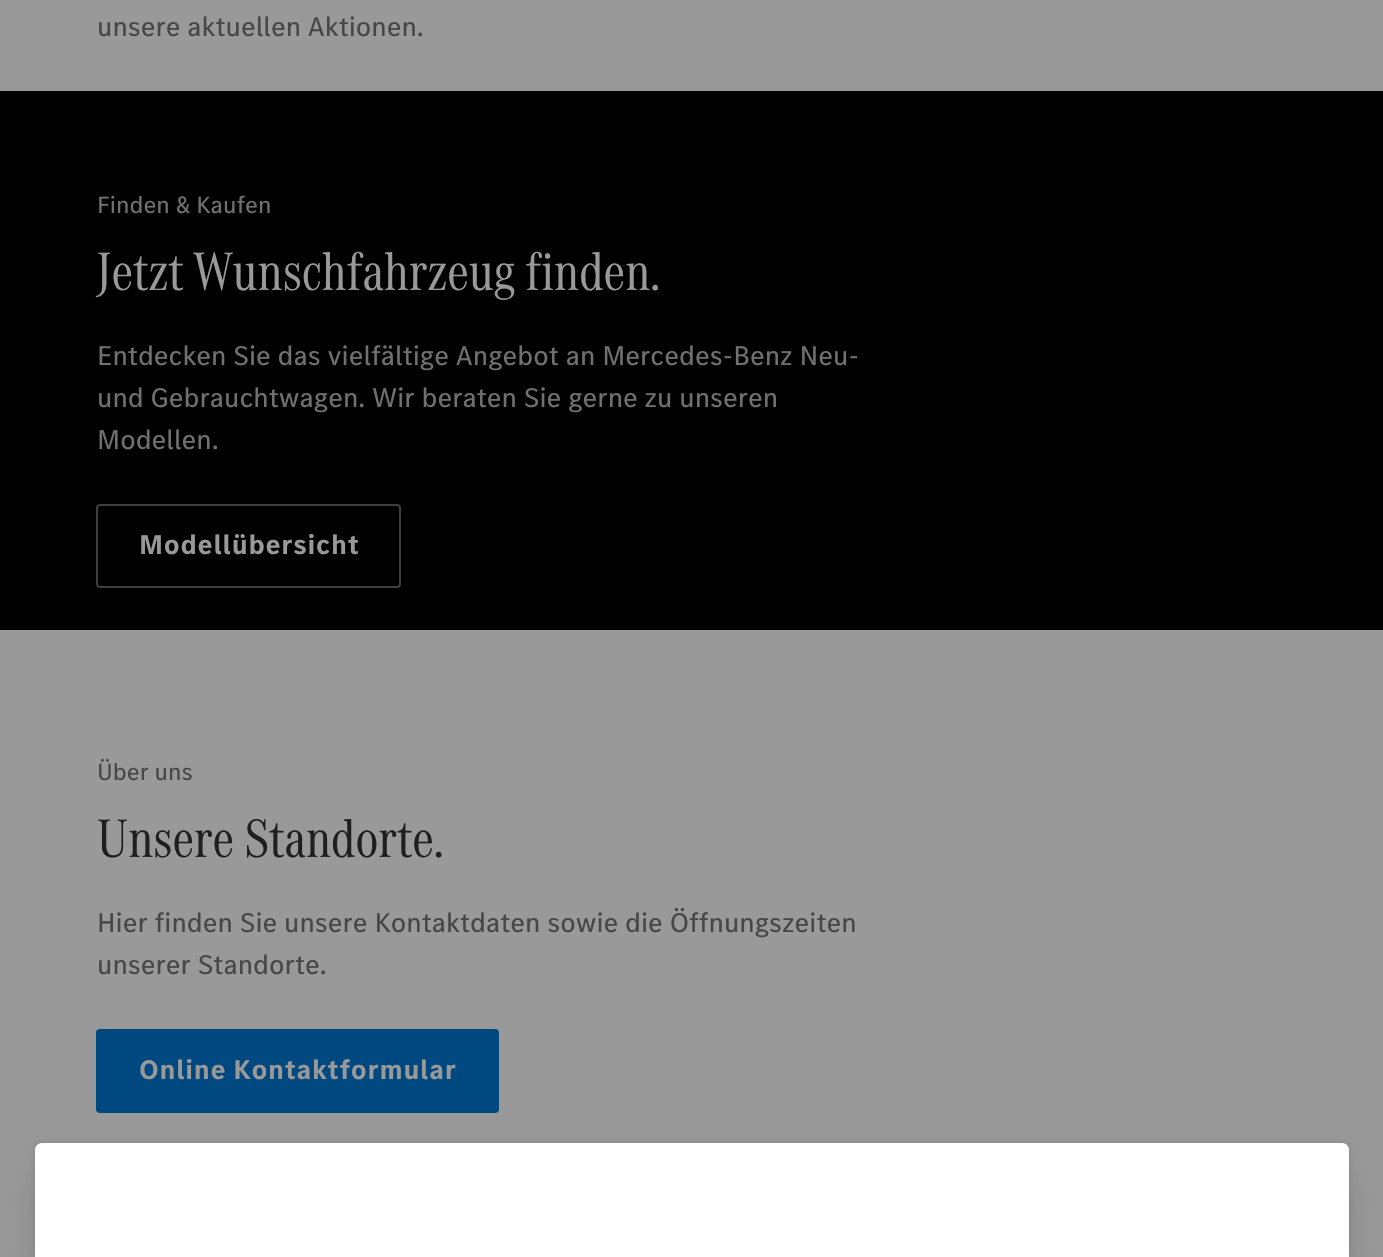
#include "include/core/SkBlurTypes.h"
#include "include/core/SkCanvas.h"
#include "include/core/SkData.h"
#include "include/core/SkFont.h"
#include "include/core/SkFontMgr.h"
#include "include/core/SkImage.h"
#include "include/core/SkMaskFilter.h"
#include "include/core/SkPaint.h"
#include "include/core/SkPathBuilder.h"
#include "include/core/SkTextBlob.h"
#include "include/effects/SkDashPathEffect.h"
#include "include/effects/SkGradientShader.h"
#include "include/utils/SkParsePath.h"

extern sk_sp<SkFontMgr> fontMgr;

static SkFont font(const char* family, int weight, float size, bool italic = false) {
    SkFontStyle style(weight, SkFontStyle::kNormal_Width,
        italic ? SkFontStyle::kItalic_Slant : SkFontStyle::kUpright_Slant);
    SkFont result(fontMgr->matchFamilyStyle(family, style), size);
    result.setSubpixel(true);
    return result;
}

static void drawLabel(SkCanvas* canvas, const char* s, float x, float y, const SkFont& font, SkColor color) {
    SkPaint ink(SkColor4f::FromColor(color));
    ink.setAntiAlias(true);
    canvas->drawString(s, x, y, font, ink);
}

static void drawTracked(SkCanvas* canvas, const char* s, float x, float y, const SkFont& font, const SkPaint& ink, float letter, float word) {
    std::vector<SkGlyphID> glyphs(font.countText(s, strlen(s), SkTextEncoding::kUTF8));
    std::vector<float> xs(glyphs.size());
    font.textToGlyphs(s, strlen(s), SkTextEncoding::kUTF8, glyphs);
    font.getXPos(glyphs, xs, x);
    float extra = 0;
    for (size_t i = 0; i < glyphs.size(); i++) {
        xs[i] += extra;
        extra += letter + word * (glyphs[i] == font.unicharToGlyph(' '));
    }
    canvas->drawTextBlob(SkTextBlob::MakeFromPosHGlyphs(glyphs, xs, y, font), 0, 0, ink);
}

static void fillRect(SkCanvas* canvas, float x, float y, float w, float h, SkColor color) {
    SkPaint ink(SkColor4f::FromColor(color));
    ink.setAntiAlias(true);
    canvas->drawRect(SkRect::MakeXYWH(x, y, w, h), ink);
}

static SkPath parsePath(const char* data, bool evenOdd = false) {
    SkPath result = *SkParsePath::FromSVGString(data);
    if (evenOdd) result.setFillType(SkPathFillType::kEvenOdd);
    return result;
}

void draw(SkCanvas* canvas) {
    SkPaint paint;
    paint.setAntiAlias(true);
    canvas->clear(0xFF999999);
    SkFont font1 = font("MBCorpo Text", 400, 28);
    drawLabel(canvas, "unsere aktuellen Aktionen.", 97, 36, font1, 0xFF474747);
    fillRect(canvas, 0, 91, 1383, 539, 0xFF000000);
    SkFont font2 = font("MBCorpo Text", 400, 24.5f);
    drawLabel(canvas, "Finden & Kaufen", 97, 213, font2, 0xFF707070);
    SkFont font3 = font("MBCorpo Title", 400, 56);
    drawLabel(canvas, "Jetzt Wunschfahrzeug finden.", 97, 290, font3, 0xFF999999);
    drawLabel(canvas, "Entdecken Sie das vielfältige Angebot an Mercedes-Benz Neu-", 97, 365, font1, 0xFF707070);
    drawLabel(canvas, "und Gebrauchtwagen. Wir beraten Sie gerne zu unseren", 97, 407, font1, 0xFF707070);
    drawLabel(canvas, "Modellen.", 97, 449, font1, 0xFF707070);
    paint.setStroke(true);
    paint.setStrokeWidth(2);
    paint.setColor(0xFF3F3F3F);
    canvas->drawRoundRect(SkRect::MakeXYWH(97, 505, 303, 82), 3, 3, paint);
    SkFont font4 = font("MBCorpo Text", 700, 28);
    paint.setStroke(false);
    paint.setColor(0xFF999999);
    drawTracked(canvas, "Modellübersicht", 139, 554, font4, paint, 0.7f, 0);
    drawLabel(canvas, "Über uns", 97, 780, font2, 0xFF474747);
    drawLabel(canvas, "Unsere Standorte.", 97, 857, font3, 0xFF1F1F1F);
    drawLabel(canvas, "Hier finden Sie unsere Kontaktdaten sowie die Öffnungszeiten", 97, 932, font1, 0xFF474747);
    drawLabel(canvas, "unserer Standorte.", 97, 974, font1, 0xFF474747);
    paint.setColor(0xFF004880);
    canvas->drawRoundRect(SkRect::MakeXYWH(97, 1030, 401, 82), 3, 3, paint);
    paint.setStroke(true);
    canvas->drawRoundRect(SkRect::MakeXYWH(97, 1030, 401, 82), 3, 3, paint);
    paint.setStroke(false);
    paint.setColor(0xFF999999);
    drawTracked(canvas, "Online Kontaktformular", 139, 1079, font4, paint, 0.7f, 0);
    paint.setColor(0x1A000000);
    paint.setMaskFilter(SkMaskFilter::MakeBlur(kNormal_SkBlurStyle, 21));
    canvas->drawRoundRect(SkRect::MakeXYWH(35, 1171, 1314, 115), 7, 7, paint);
    paint.setMaskFilter(nullptr);
    paint.setMaskFilter(SkMaskFilter::MakeBlur(kNormal_SkBlurStyle, 3.5f));
    canvas->drawRoundRect(SkRect::MakeXYWH(35, 1143, 1314, 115), 7, 7, paint);
    paint.setMaskFilter(nullptr);
    paint.setColor(0xFFFFFFFF);
    canvas->drawPath(parsePath("M42 1143H1342C1346 1143 1349 1146 1349 1150V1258H35V1150C35 1146 38 1143 42 1143Z"), paint);
}
